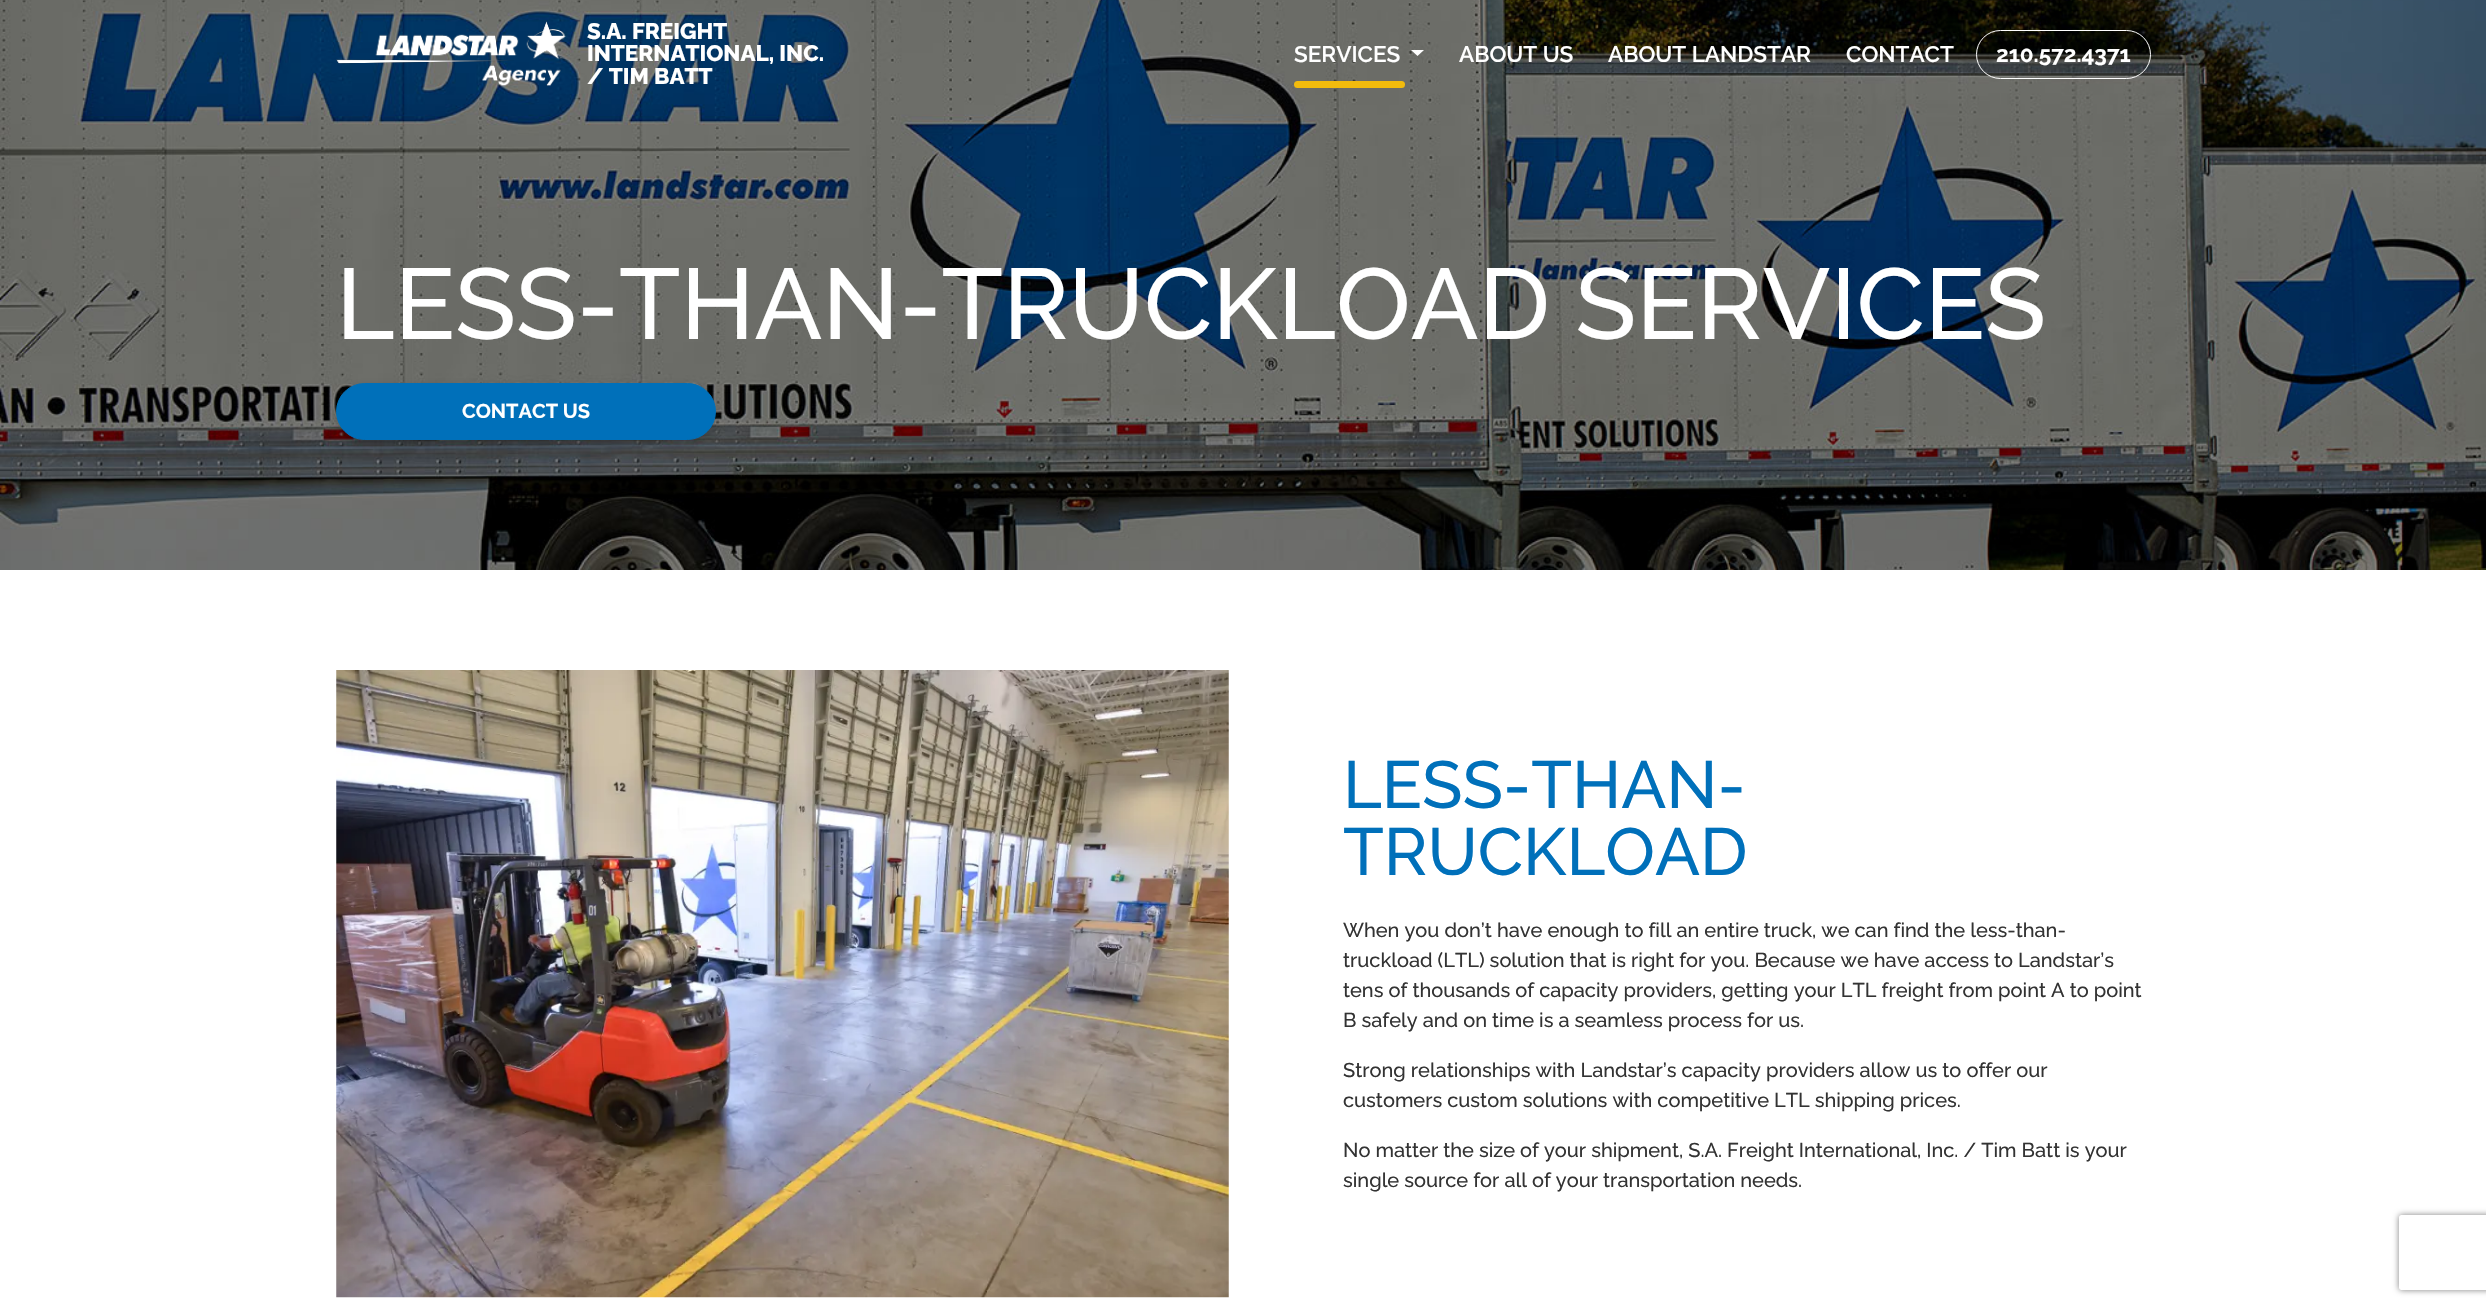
#include "include/core/SkBlurTypes.h"
#include "include/core/SkCanvas.h"
#include "include/core/SkData.h"
#include "include/core/SkFont.h"
#include "include/core/SkFontMgr.h"
#include "include/core/SkImage.h"
#include "include/core/SkMaskFilter.h"
#include "include/core/SkPaint.h"
#include "include/core/SkPathBuilder.h"
#include "include/core/SkTextBlob.h"
#include "include/effects/SkDashPathEffect.h"
#include "include/effects/SkGradientShader.h"
#include "include/utils/SkParsePath.h"

extern sk_sp<SkFontMgr> fontMgr;

static SkFont font(const char* family, int weight, float size, bool italic = false) {
    SkFontStyle style(weight, SkFontStyle::kNormal_Width,
        italic ? SkFontStyle::kItalic_Slant : SkFontStyle::kUpright_Slant);
    SkFont result(fontMgr->matchFamilyStyle(family, style), size);
    result.setSubpixel(true);
    return result;
}

static void drawLabel(SkCanvas* canvas, const char* s, float x, float y, const SkFont& font, SkColor color) {
    SkPaint ink(SkColor4f::FromColor(color));
    ink.setAntiAlias(true);
    canvas->drawString(s, x, y, font, ink);
}

static void fillRRect(SkCanvas* canvas, float x, float y, float w, float h, float radius, SkColor color) {
    SkPaint ink(SkColor4f::FromColor(color));
    ink.setAntiAlias(true);
    canvas->drawRoundRect(SkRect::MakeXYWH(x, y, w, h), radius, radius, ink);
}

static void drawPhoto(SkCanvas* canvas, const char* path, float x, float y, float w, float h) {
    auto image = SkImages::DeferredFromEncodedData(SkData::MakeFromFileName(path));
    canvas->drawImageRect(image, SkRect::MakeXYWH(x, y, w, h), SkSamplingOptions());
}

static SkPath parsePath(const char* data, bool evenOdd = false) {
    SkPath result = *SkParsePath::FromSVGString(data);
    if (evenOdd) result.setFillType(SkPathFillType::kEvenOdd);
    return result;
}

void draw(SkCanvas* canvas) {
    SkPaint paint;
    paint.setAntiAlias(true);
    canvas->clear(0xFFFFFFFF);
    drawPhoto(canvas, "assets/img2.png", 0, 0, 2486, 570);
    drawPhoto(canvas, "assets/img1.png", 336, 21, 230, 65);
    SkFont font1 = font("Raleway", 800, 22.5f);
    drawLabel(canvas, "S.A. FREIGHT", 587, 39, font1, 0xFFFFFFFF);
    drawLabel(canvas, "INTERNATIONAL, INC.", 587, 61, font1, 0xFFFFFFFF);
    drawLabel(canvas, "/ TIM BATT", 587, 84, font1, 0xFFFFFFFF);
    SkFont font2 = font("Raleway", 600, 22.5f);
    drawLabel(canvas, "SERVICES", 1294, 62, font2, 0xFFFFFFFF);
    fillRRect(canvas, 1294, 81, 111, 7, 3.5f, 0xFFF2BB0D);
    paint.setColor(0xFFFFFFFF);
    canvas->drawPath(parsePath("M1411 50H1424L1417.5 56Z"), paint);
    drawLabel(canvas, "ABOUT US", 1459, 62, font2, 0xFFFFFFFF);
    drawLabel(canvas, "ABOUT LANDSTAR", 1608, 62, font2, 0xFFFFFFFF);
    drawLabel(canvas, "CONTACT", 1846, 62, font2, 0xFFFFFFFF);
    paint.setStroke(true);
    paint.setStrokeWidth(1);
    canvas->drawRoundRect(SkRect::MakeXYWH(1976.5f, 30.5f, 174, 48), 24, 24, paint);
    SkFont font3 = font("Raleway", 700, 22.5f);
    drawLabel(canvas, "210.572.4371", 1996, 62, font3, 0xFFFFFFFF);
    SkFont font4 = font("Raleway", 500, 100);
    drawLabel(canvas, "LESS-THAN-TRUCKLOAD SERVICES", 336, 339, font4, 0xFFFFFFFF);
    paint.setStroke(false);
    paint.setColor(0x29000000);
    paint.setMaskFilter(SkMaskFilter::MakeBlur(kNormal_SkBlurStyle, 4));
    canvas->drawRoundRect(SkRect::MakeXYWH(336, 386, 380, 58), 29, 29, paint);
    paint.setMaskFilter(nullptr);
    paint.setColor(0xFF0070BA);
    canvas->drawRoundRect(SkRect::MakeXYWH(336.5f, 383.5f, 379, 56), 28, 28, paint);
    paint.setStroke(true);
    canvas->drawRoundRect(SkRect::MakeXYWH(336.5f, 383.5f, 379, 56), 28, 28, paint);
    SkFont font5 = font("Raleway", 700, 20);
    drawLabel(canvas, "CONTACT US", 462, 418, font5, 0xFFFFFFFF);
    drawPhoto(canvas, "assets/img3.png", 336, 670, 893, 628);
    SkFont font6 = font("Raleway", 500, 66.5f);
    drawLabel(canvas, "LESS-THAN-", 1343, 808, font6, 0xFF0070BA);
    drawLabel(canvas, "TRUCKLOAD", 1343, 875, font6, 0xFF0070BA);
    SkFont font7 = font("Raleway", 500, 20);
    drawLabel(canvas, "When you don’t have enough to fill an entire truck, we can find the less-than-", 1343, 937, font7, 0xFF333333);
    drawLabel(canvas, "truckload (LTL) solution that is right for you. Because we have access to Landstar’s", 1343, 967, font7, 0xFF333333);
    drawLabel(canvas, "tens of thousands of capacity providers, getting your LTL freight from point A to point", 1343, 997, font7, 0xFF333333);
    drawLabel(canvas, "B safely and on time is a seamless process for us.", 1343, 1027, font7, 0xFF333333);
    drawLabel(canvas, "Strong relationships with Landstar’s capacity providers allow us to offer our", 1343, 1077, font7, 0xFF333333);
    drawLabel(canvas, "customers custom solutions with competitive LTL shipping prices.", 1343, 1107, font7, 0xFF333333);
    drawLabel(canvas, "No matter the size of your shipment, S.A. Freight International, Inc. / Tim Batt is your", 1343, 1157, font7, 0xFF333333);
    drawLabel(canvas, "single source for all of your transportation needs.", 1343, 1187, font7, 0xFF333333);
    canvas->save();
    canvas->clipPath(parsePath("M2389 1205H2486V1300H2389ZM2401.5 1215H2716.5C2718 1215 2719 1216 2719 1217.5V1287.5C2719 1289 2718 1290 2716.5 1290H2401.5C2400 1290 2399 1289 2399 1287.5V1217.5C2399 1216 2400 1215 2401.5 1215Z", true), true);
    paint.setStroke(false);
    paint.setColor(0xFF808080);
    paint.setMaskFilter(SkMaskFilter::MakeBlur(kNormal_SkBlurStyle, 3));
    canvas->drawRoundRect(SkRect::MakeXYWH(2399, 1215, 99, 75), 2.5f, 2.5f, paint);
    paint.setMaskFilter(nullptr);
    canvas->restore();
}
